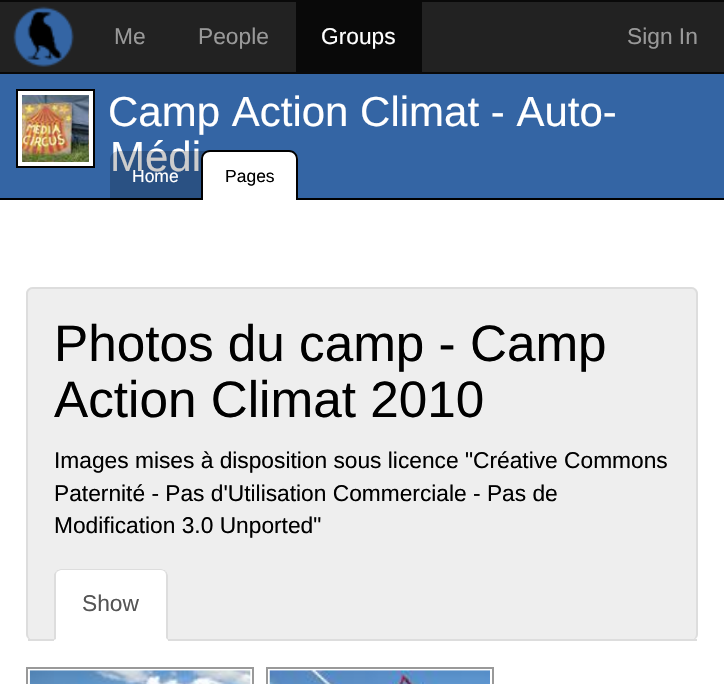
#include "include/core/SkBlurTypes.h"
#include "include/core/SkCanvas.h"
#include "include/core/SkData.h"
#include "include/core/SkFont.h"
#include "include/core/SkFontMgr.h"
#include "include/core/SkImage.h"
#include "include/core/SkMaskFilter.h"
#include "include/core/SkPaint.h"
#include "include/core/SkPathBuilder.h"
#include "include/core/SkTextBlob.h"
#include "include/effects/SkDashPathEffect.h"
#include "include/effects/SkGradientShader.h"
#include "include/utils/SkParsePath.h"

extern sk_sp<SkFontMgr> fontMgr;

static SkFont font(const char* family, int weight, float size, bool italic = false) {
    SkFontStyle style(weight, SkFontStyle::kNormal_Width,
        italic ? SkFontStyle::kItalic_Slant : SkFontStyle::kUpright_Slant);
    SkFont result(fontMgr->matchFamilyStyle(family, style), size);
    result.setSubpixel(true);
    return result;
}

static void drawLabel(SkCanvas* canvas, const char* s, float x, float y, const SkFont& font, SkColor color) {
    SkPaint ink(SkColor4f::FromColor(color));
    ink.setAntiAlias(true);
    canvas->drawString(s, x, y, font, ink);
}

static void fillRect(SkCanvas* canvas, float x, float y, float w, float h, SkColor color) {
    SkPaint ink(SkColor4f::FromColor(color));
    ink.setAntiAlias(true);
    canvas->drawRect(SkRect::MakeXYWH(x, y, w, h), ink);
}

static void fillRRect(SkCanvas* canvas, float x, float y, float w, float h, float radius, SkColor color) {
    SkPaint ink(SkColor4f::FromColor(color));
    ink.setAntiAlias(true);
    canvas->drawRoundRect(SkRect::MakeXYWH(x, y, w, h), radius, radius, ink);
}

static void drawPhoto(SkCanvas* canvas, const char* path, float x, float y, float w, float h) {
    auto image = SkImages::DeferredFromEncodedData(SkData::MakeFromFileName(path));
    canvas->drawImageRect(image, SkRect::MakeXYWH(x, y, w, h), SkSamplingOptions());
}

static SkPath parsePath(const char* data, bool evenOdd = false) {
    SkPath result = *SkParsePath::FromSVGString(data);
    if (evenOdd) result.setFillType(SkPathFillType::kEvenOdd);
    return result;
}

void draw(SkCanvas* canvas) {
    SkPaint paint;
    paint.setAntiAlias(true);
    canvas->clear(0xFFFFFFFF);
    fillRect(canvas, 0, 2, 724, 70, 0xFF222222);
    fillRect(canvas, 0, 0, 724, 2, 0xFF090909);
    fillRect(canvas, 0, 72, 724, 2, 0xFF090909);
    drawPhoto(canvas, "assets/img1.png", 13, 6, 61, 61);
    SkFont font1 = font("Liberation Sans", 400, 22.75f);
    drawLabel(canvas, "Me", 114, 44, font1, 0xFF999999);
    drawLabel(canvas, "People", 198, 44, font1, 0xFF999999);
    fillRect(canvas, 296, 2, 126, 70, 0xFF090909);
    drawLabel(canvas, "Groups", 321, 44, font1, 0xFFFFFFFF);
    drawLabel(canvas, "Sign In", 627, 44, font1, 0xFF999999);
    fillRect(canvas, 0, 74, 724, 124, 0xFF3465A4);
    fillRect(canvas, 0, 198, 724, 2, 0xFF000000);
    drawPhoto(canvas, "assets/img2.png", 22, 95, 67, 67);
    paint.setStroke(true);
    paint.setStrokeWidth(4);
    paint.setColor(0xFFFFFFFF);
    canvas->drawRect(SkRect::MakeXYWH(20, 93, 71, 71), paint);
    paint.setStrokeWidth(2);
    paint.setColor(0xFF000000);
    canvas->drawRect(SkRect::MakeXYWH(17, 90, 77, 77), paint);
    SkFont font2 = font("Liberation Sans", 400, 42);
    drawLabel(canvas, "Camp Action Climat - Auto-", 108, 126, font2, 0xFFFFFFFF);
    drawLabel(canvas, "Médi", 110, 171, font2, 0xFFFFFFFF);
    paint.setStroke(false);
    paint.setColor(0x33000000);
    canvas->drawPath(parsePath("M119 151H201V200H110V160C110 155 114 151 119 151Z"), paint);
    SkFont font3 = font("Liberation Sans", 400, 17.5f);
    drawLabel(canvas, "Home", 132, 182, font3, 0xFFFFFFFF);
    canvas->drawPath(parsePath("M201 151H289C294 151 298 155 298 160V200H201Z"), paint);
    paint.setColor(0xFFFFFFFF);
    canvas->drawPath(parsePath("M210 151H289C294 151 298 155 298 160V200H201V160C201 155 205 151 210 151Z"), paint);
    paint.setColor(0xFF000000);
    canvas->drawPath(parsePath("M210 150H289C294 150 298 154 298 159V200H201V159C201 154 205 150 210 150ZM210 152H289C293 152 296 155 296 159V200H203V159C203 155 206 152 210 152Z", true), paint);
    drawLabel(canvas, "Pages", 225, 182, font3, 0xFF000000);
    fillRRect(canvas, 26, 287, 672, 354, 7, 0xFFEEEEEE);
    paint.setColor(0xFFDDDDDD);
    canvas->drawPath(parsePath("M33 287H691C695 287 698 290 698 294V634C698 637 695 640 691 640H33C29 640 26 637 26 634V294C26 290 29 287 33 287ZM33 289H691C694 289 696 291 696 294V634C696 637 694 640 691 640H33C30 640 28 637 28 634V294C28 291 30 289 33 289Z", true), paint);
    SkFont font4 = font("Liberation Sans", 400, 51.25f);
    drawLabel(canvas, "Photos du camp - Camp", 54, 361, font4, 0xFF000000);
    drawLabel(canvas, "Action Climat 2010", 54, 417, font4, 0xFF000000);
    drawLabel(canvas, "Images mises à disposition sous licence \"Créative Commons", 54, 468, font1, 0xFF000000);
    drawLabel(canvas, "Paternité - Pas d'Utilisation Commerciale - Pas de", 54, 501, font1, 0xFF000000);
    drawLabel(canvas, "Modification 3.0 Unported\"", 54, 533, font1, 0xFF000000);
    fillRect(canvas, 28, 639, 669, 2, 0xFFDDDDDD);
    paint.setColor(0xFFFFFFFF);
    canvas->drawPath(parsePath("M61 569H161C165 569 168 572 168 576V641H54V576C54 572 57 569 61 569Z"), paint);
    paint.setColor(0xFFDDDDDD);
    canvas->drawPath(parsePath("M61 569C59 569 57 570 56 571L57 572C58 571 60 570 61 570H161C163 570 164 571 165 572L166 571C165 570 163 569 161 569Z"), paint);
    canvas->drawPath(parsePath("M166 571C167 572 168 574 168 576V640L166 638V576C166 575 166 573 165 572Z"), paint);
    canvas->drawPath(parsePath("M54 574L56 571L57 572C56 573 56 574 56 576V639L54 640Z"), paint);
    drawLabel(canvas, "Show", 82, 611, font1, 0xFF555555);
    drawPhoto(canvas, "assets/img3.png", 29, 670, 222, 14);
    paint.setStroke(true);
    paint.setColor(0xFF999999);
    canvas->drawRect(SkRect::MakeXYWH(27, 668, 226, 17), paint);
    drawPhoto(canvas, "assets/img4.png", 269, 670, 221, 14);
    canvas->drawRect(SkRect::MakeXYWH(267, 668, 226, 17), paint);
}
